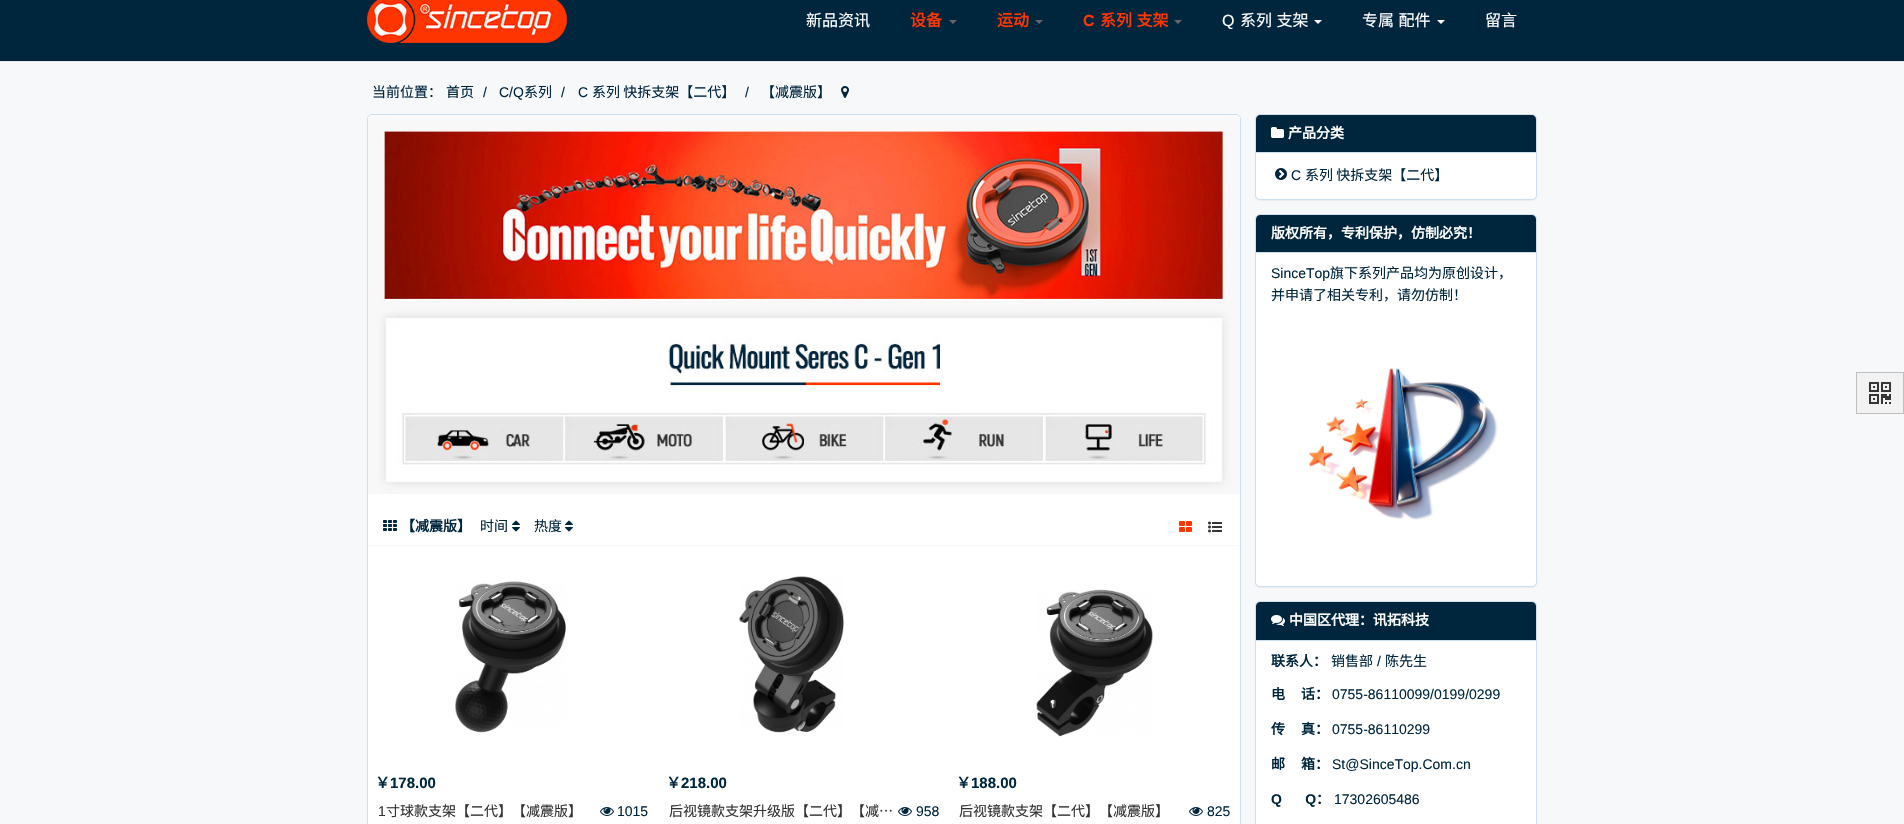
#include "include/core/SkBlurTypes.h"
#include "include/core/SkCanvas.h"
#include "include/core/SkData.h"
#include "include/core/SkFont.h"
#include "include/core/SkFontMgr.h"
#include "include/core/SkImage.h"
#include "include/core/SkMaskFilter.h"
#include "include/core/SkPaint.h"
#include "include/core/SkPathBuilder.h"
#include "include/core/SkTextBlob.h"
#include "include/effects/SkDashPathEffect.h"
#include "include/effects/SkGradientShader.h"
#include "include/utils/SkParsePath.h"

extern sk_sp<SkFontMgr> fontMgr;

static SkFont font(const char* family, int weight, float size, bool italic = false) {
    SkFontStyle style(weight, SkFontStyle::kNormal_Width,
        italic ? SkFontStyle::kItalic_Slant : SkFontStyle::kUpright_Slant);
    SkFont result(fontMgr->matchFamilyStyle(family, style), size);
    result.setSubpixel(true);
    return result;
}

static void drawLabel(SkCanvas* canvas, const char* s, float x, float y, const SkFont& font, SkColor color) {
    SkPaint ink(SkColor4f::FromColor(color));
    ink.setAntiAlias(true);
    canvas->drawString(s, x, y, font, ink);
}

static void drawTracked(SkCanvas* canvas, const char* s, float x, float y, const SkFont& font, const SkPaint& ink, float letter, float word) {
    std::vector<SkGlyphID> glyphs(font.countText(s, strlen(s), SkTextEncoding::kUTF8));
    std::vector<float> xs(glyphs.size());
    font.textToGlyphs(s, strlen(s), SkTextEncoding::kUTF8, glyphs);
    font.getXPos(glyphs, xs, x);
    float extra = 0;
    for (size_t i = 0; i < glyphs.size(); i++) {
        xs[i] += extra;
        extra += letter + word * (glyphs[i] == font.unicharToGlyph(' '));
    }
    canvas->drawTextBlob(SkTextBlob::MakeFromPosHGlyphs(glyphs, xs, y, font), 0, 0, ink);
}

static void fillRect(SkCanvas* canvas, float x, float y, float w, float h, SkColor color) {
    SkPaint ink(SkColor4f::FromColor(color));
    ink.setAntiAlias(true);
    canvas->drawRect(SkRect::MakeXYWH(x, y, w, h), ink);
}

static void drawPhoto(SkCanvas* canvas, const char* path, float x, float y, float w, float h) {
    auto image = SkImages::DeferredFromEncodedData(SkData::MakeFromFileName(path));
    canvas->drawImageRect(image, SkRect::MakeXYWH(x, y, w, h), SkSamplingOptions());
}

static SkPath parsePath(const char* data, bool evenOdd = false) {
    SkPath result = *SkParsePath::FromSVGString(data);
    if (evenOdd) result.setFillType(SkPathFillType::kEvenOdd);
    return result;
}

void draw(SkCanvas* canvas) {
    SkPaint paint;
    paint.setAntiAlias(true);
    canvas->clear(0xFFF6F8FA);
    fillRect(canvas, 0, 61, 1904, 1, 0xFFE5E5E5);
    fillRect(canvas, 0, 0, 1904, 61, 0xFF00263E);
    drawPhoto(canvas, "assets/img1.png", 367, 0, 200, 43);
    SkFont font1 = font("Noto Sans CJK SC", 400, 16);
    drawLabel(canvas, "新品资讯", 806, 26, font1, 0xFFFFFFFF);
    SkFont font2 = font("Noto Sans CJK SC", 700, 16);
    drawLabel(canvas, "设备", 910, 26, font2, 0xFFFF3500);
    paint.setColor(0xFF666666);
    canvas->drawPath(parsePath("M949 20H957L953 24Z"), paint);
    drawLabel(canvas, "运动", 997, 26, font2, 0xFFFF3500);
    canvas->drawPath(parsePath("M1035 20H1043L1039 24Z"), paint);
    SkFont font3 = font("Liberation Sans", 700, 16);
    drawLabel(canvas, "C", 1083, 26, font3, 0xFFFF3500);
    paint.setColor(0xFFFF3500);
    drawTracked(canvas, "系列 支架", 1100, 26, font2, paint, 0, 1);
    paint.setColor(0xFF666666);
    canvas->drawPath(parsePath("M1174 20H1182L1178 24Z"), paint);
    SkFont font4 = font("Liberation Sans", 400, 16);
    drawLabel(canvas, "Q", 1222, 26, font4, 0xFFFFFFFF);
    paint.setColor(0xFFFFFFFF);
    drawTracked(canvas, "系列 支架", 1240, 26, font1, paint, 0, 1);
    canvas->drawPath(parsePath("M1314 20H1322L1318 24Z"), paint);
    drawTracked(canvas, "专属 配件", 1362, 26, font1, paint, 0, 1);
    canvas->drawPath(parsePath("M1437 20H1445L1441 24Z"), paint);
    drawLabel(canvas, "留言", 1485, 26, font1, 0xFFFFFFFF);
    SkFont font5 = font("Noto Sans CJK SC", 400, 14);
    drawLabel(canvas, "当前位置：", 372, 97, font5, 0xFF00263E);
    drawLabel(canvas, "首页", 446, 97, font5, 0xFF00263E);
    SkFont font6 = font("Liberation Sans", 400, 14);
    drawLabel(canvas, "/", 483, 97, font6, 0xFF00263E);
    drawLabel(canvas, "C/Q", 499, 97, font6, 0xFF00263E);
    drawLabel(canvas, "系列", 524, 97, font5, 0xFF00263E);
    drawLabel(canvas, "/", 561, 97, font6, 0xFF00263E);
    drawLabel(canvas, "C", 578, 97, font6, 0xFF00263E);
    drawLabel(canvas, "系列 快拆支架【二代】", 592, 97, font5, 0xFF00263E);
    drawLabel(canvas, "/", 745, 97, font6, 0xFF00263E);
    drawLabel(canvas, "【减震版】", 761, 97, font5, 0xFF00263E);
    drawPhoto(canvas, "assets/img2.png", 841, 86, 8, 12);
    canvas->drawRoundRect(SkRect::MakeXYWH(367.5f, 114.5f, 873, 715), 4.5f, 4.5f, paint);
    paint.setStroke(true);
    paint.setStrokeWidth(1);
    paint.setColor(0xFFCEDFEF);
    canvas->drawRoundRect(SkRect::MakeXYWH(367.5f, 114.5f, 873, 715), 4.5f, 4.5f, paint);
    drawPhoto(canvas, "assets/img3.png", 368, 115, 872, 379);
    fillRect(canvas, 368, 545, 872, 1, 0xFFF6F8FA);
    drawPhoto(canvas, "assets/img4.png", 383, 520, 14, 11);
    SkFont font7 = font("Noto Sans CJK SC", 700, 14);
    drawLabel(canvas, "【减震版】", 401, 531, font7, 0xFF00263E);
    drawLabel(canvas, "时间", 480, 531, font5, 0xFF00263E);
    drawPhoto(canvas, "assets/img5.png", 512, 520, 8, 12);
    drawLabel(canvas, "热度", 534, 531, font5, 0xFF00263E);
    drawPhoto(canvas, "assets/img5.png", 565, 520, 8, 12);
    drawPhoto(canvas, "assets/img6.png", 1179, 521, 13, 11);
    drawPhoto(canvas, "assets/img7.png", 1208, 521, 14, 12);
    drawPhoto(canvas, "assets/img8.png", 455, 581, 111, 152);
    SkFont font8 = font("Noto Sans CJK SC", 700, 15);
    drawLabel(canvas, "￥", 375, 788, font8, 0xFF00263E);
    SkFont font9 = font("Liberation Sans", 700, 15);
    drawLabel(canvas, "178.00", 390, 788, font9, 0xFF00263E);
    drawLabel(canvas, "1", 378, 816, font6, 0xFF333333);
    drawLabel(canvas, "寸球款支架【二代】【减震版】", 386, 816, font5, 0xFF333333);
    drawPhoto(canvas, "assets/img9.png", 600, 807, 14, 9);
    drawLabel(canvas, "1015", 617, 816, font6, 0xFF00263E);
    drawPhoto(canvas, "assets/img10.png", 739, 576, 105, 157);
    drawLabel(canvas, "￥", 666, 788, font8, 0xFF00263E);
    drawLabel(canvas, "218.00", 681, 788, font9, 0xFF00263E);
    drawLabel(canvas, "后视镜款支架升级版【二代】【减…", 669, 816, font5, 0xFF333333);
    drawPhoto(canvas, "assets/img9.png", 898, 807, 14, 9);
    drawLabel(canvas, "958", 916, 816, font6, 0xFF00263E);
    drawPhoto(canvas, "assets/img11.png", 1036, 589, 117, 148);
    drawLabel(canvas, "￥", 956, 788, font8, 0xFF00263E);
    drawLabel(canvas, "188.00", 971, 788, font9, 0xFF00263E);
    drawLabel(canvas, "后视镜款支架【二代】【减震版】", 959, 816, font5, 0xFF333333);
    drawPhoto(canvas, "assets/img9.png", 1189, 807, 14, 9);
    drawLabel(canvas, "825", 1207, 816, font6, 0xFF00263E);
    paint.setStroke(false);
    paint.setColor(0x0D000000);
    paint.setMaskFilter(SkMaskFilter::MakeBlur(kNormal_SkBlurStyle, 0.5f));
    canvas->drawRoundRect(SkRect::MakeXYWH(1255, 115, 282, 86), 5, 5, paint);
    paint.setMaskFilter(nullptr);
    paint.setColor(0xFFFFFFFF);
    canvas->drawRoundRect(SkRect::MakeXYWH(1255.5f, 114.5f, 281, 85), 4.5f, 4.5f, paint);
    paint.setStroke(true);
    paint.setColor(0xFFCEDFEF);
    canvas->drawRoundRect(SkRect::MakeXYWH(1255.5f, 114.5f, 281, 85), 4.5f, 4.5f, paint);
    paint.setStroke(false);
    paint.setColor(0xFF00263E);
    canvas->drawPath(parsePath("M1260 115H1532C1534 115 1536 117 1536 119V153H1256V119C1256 117 1258 115 1260 115Z"), paint);
    fillRect(canvas, 1256, 152, 280, 1, 0xFFCEDFEF);
    drawPhoto(canvas, "assets/img12.png", 1271, 127, 13, 11);
    drawLabel(canvas, "产品分类", 1288, 138, font7, 0xFFFFFFFF);
    drawPhoto(canvas, "assets/img13.png", 1275, 168, 12, 12);
    drawLabel(canvas, "C", 1291, 180, font6, 0xFF00263E);
    drawLabel(canvas, "系列 快拆支架【二代】", 1305, 180, font5, 0xFF00263E);
    paint.setColor(0x0D000000);
    paint.setMaskFilter(SkMaskFilter::MakeBlur(kNormal_SkBlurStyle, 0.5f));
    canvas->drawRoundRect(SkRect::MakeXYWH(1255, 215, 282, 373), 5, 5, paint);
    paint.setMaskFilter(nullptr);
    paint.setColor(0xFFFFFFFF);
    canvas->drawRoundRect(SkRect::MakeXYWH(1255.5f, 214.5f, 281, 372), 4.5f, 4.5f, paint);
    paint.setStroke(true);
    paint.setColor(0xFFCEDFEF);
    canvas->drawRoundRect(SkRect::MakeXYWH(1255.5f, 214.5f, 281, 372), 4.5f, 4.5f, paint);
    paint.setStroke(false);
    paint.setColor(0xFF00263E);
    canvas->drawPath(parsePath("M1260 215H1532C1534 215 1536 217 1536 219V253H1256V219C1256 217 1258 215 1260 215Z"), paint);
    fillRect(canvas, 1256, 252, 280, 1, 0xFFCEDFEF);
    drawLabel(canvas, "版权所有，专利保护，仿制必究！", 1271, 238, font7, 0xFFFFFFFF);
    drawLabel(canvas, "SinceTop", 1271, 278, font6, 0xFF00263E);
    drawLabel(canvas, "旗下系列产品均为原创设计，", 1330, 278, font5, 0xFF00263E);
    drawLabel(canvas, "并申请了相关专利，请勿仿制！", 1271, 300, font5, 0xFF00263E);
    drawPhoto(canvas, "assets/img14.png", 1309, 368, 189, 152);
    paint.setColor(0xFFFFFFFF);
    canvas->drawRoundRect(SkRect::MakeXYWH(1255.5f, 601.5f, 281, 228), 4.5f, 4.5f, paint);
    paint.setStroke(true);
    paint.setColor(0xFFCEDFEF);
    canvas->drawRoundRect(SkRect::MakeXYWH(1255.5f, 601.5f, 281, 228), 4.5f, 4.5f, paint);
    paint.setStroke(false);
    paint.setColor(0xFF00263E);
    canvas->drawPath(parsePath("M1260 602H1532C1534 602 1536 604 1536 606V641H1256V606C1256 604 1258 602 1260 602Z"), paint);
    fillRect(canvas, 1256, 640, 280, 1, 0xFFCEDFEF);
    drawPhoto(canvas, "assets/img15.png", 1271, 615, 14, 11);
    drawLabel(canvas, "中国区代理：讯拓科技", 1289, 625, font7, 0xFFFFFFFF);
    drawLabel(canvas, "联系人：", 1271, 666, font7, 0xFF00263E);
    drawLabel(canvas, "销售部", 1331, 666, font5, 0xFF00263E);
    drawLabel(canvas, "/", 1377, 666, font6, 0xFF00263E);
    drawLabel(canvas, "陈先生", 1385, 666, font5, 0xFF00263E);
    drawLabel(canvas, "电", 1271, 699, font7, 0xFF00263E);
    drawLabel(canvas, "话：", 1301, 699, font7, 0xFF00263E);
    drawLabel(canvas, "0755-86110099/0199/0299", 1332, 699, font6, 0xFF00263E);
    drawLabel(canvas, "传", 1271, 734, font7, 0xFF00263E);
    drawLabel(canvas, "真：", 1301, 734, font7, 0xFF00263E);
    drawLabel(canvas, "0755-86110299", 1332, 734, font6, 0xFF00263E);
    drawLabel(canvas, "邮", 1271, 769, font7, 0xFF00263E);
    drawLabel(canvas, "箱：", 1301, 769, font7, 0xFF00263E);
    drawLabel(canvas, "St@SinceTop.Com.cn", 1332, 769, font6, 0xFF00263E);
    SkFont font10 = font("Liberation Sans", 700, 14);
    drawLabel(canvas, "Q      Q", 1271, 804, font10, 0xFF00263E);
    drawLabel(canvas, "：", 1316, 804, font7, 0xFF00263E);
    drawLabel(canvas, "17302605486", 1334, 804, font6, 0xFF00263E);
    paint.setColor(0xFFF2F2F2);
    canvas->drawRect(SkRect::MakeXYWH(1856.5f, 372.5f, 47, 41), paint);
    paint.setStroke(true);
    paint.setColor(0xFFBFBFBF);
    canvas->drawRect(SkRect::MakeXYWH(1856.5f, 372.5f, 47, 41), paint);
    drawPhoto(canvas, "assets/img16.png", 1869, 382, 22, 22);
}
